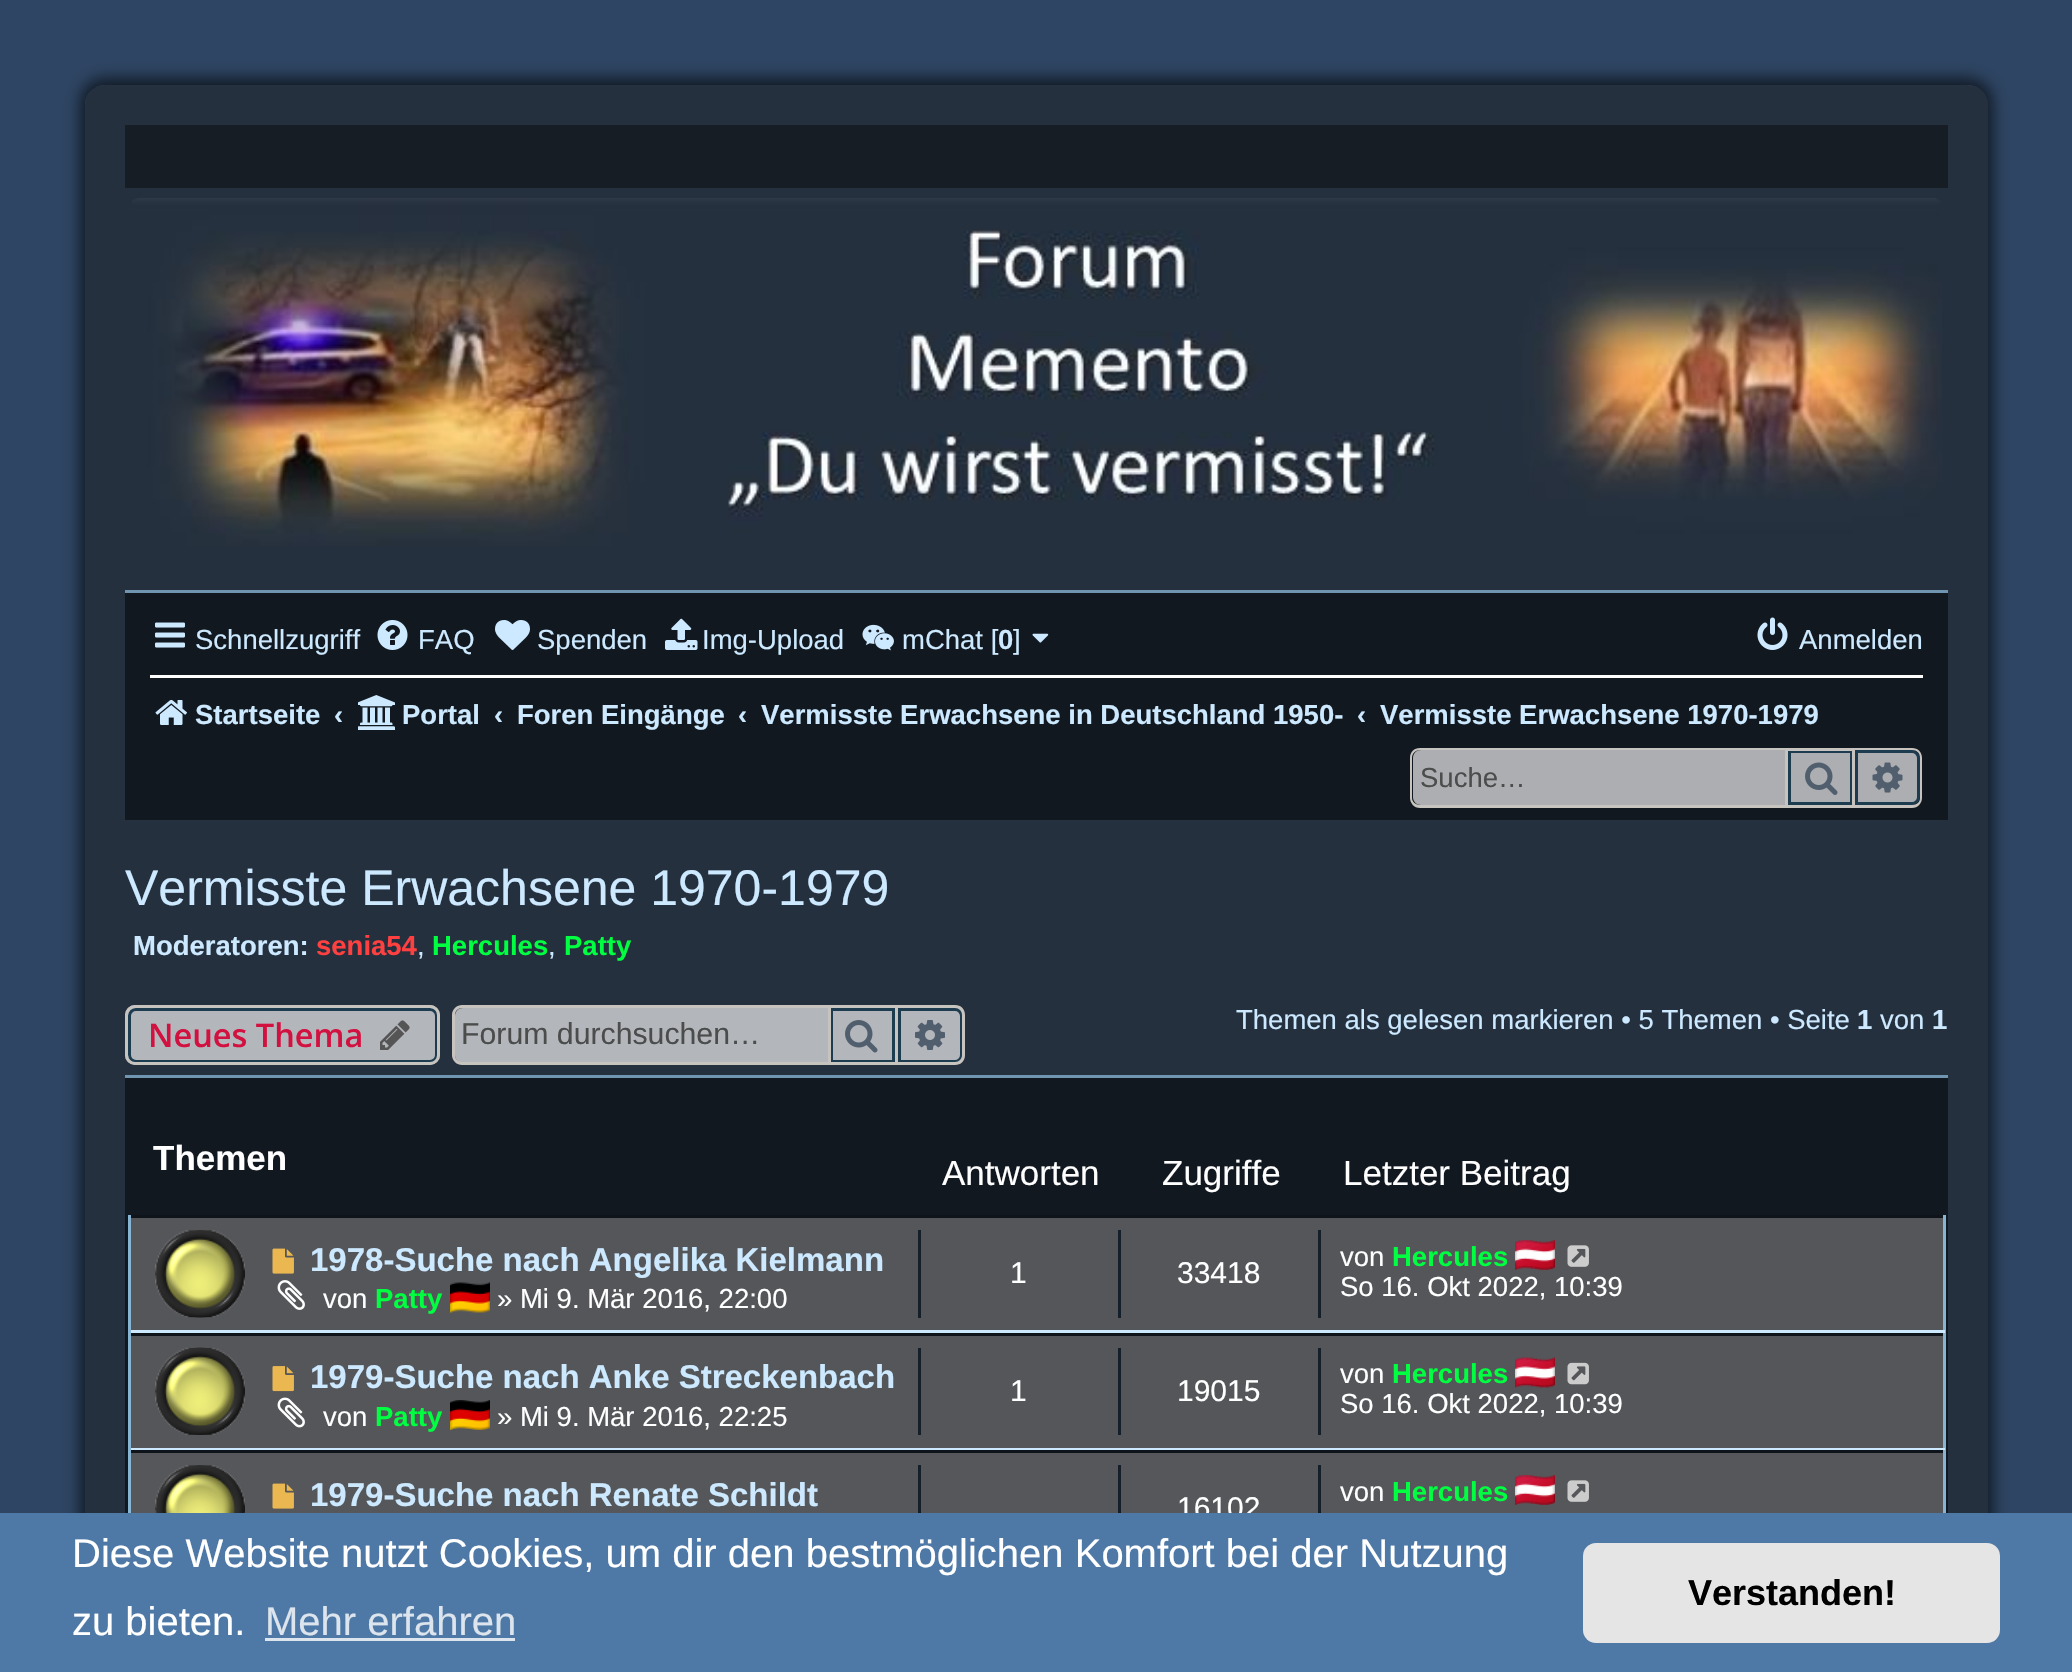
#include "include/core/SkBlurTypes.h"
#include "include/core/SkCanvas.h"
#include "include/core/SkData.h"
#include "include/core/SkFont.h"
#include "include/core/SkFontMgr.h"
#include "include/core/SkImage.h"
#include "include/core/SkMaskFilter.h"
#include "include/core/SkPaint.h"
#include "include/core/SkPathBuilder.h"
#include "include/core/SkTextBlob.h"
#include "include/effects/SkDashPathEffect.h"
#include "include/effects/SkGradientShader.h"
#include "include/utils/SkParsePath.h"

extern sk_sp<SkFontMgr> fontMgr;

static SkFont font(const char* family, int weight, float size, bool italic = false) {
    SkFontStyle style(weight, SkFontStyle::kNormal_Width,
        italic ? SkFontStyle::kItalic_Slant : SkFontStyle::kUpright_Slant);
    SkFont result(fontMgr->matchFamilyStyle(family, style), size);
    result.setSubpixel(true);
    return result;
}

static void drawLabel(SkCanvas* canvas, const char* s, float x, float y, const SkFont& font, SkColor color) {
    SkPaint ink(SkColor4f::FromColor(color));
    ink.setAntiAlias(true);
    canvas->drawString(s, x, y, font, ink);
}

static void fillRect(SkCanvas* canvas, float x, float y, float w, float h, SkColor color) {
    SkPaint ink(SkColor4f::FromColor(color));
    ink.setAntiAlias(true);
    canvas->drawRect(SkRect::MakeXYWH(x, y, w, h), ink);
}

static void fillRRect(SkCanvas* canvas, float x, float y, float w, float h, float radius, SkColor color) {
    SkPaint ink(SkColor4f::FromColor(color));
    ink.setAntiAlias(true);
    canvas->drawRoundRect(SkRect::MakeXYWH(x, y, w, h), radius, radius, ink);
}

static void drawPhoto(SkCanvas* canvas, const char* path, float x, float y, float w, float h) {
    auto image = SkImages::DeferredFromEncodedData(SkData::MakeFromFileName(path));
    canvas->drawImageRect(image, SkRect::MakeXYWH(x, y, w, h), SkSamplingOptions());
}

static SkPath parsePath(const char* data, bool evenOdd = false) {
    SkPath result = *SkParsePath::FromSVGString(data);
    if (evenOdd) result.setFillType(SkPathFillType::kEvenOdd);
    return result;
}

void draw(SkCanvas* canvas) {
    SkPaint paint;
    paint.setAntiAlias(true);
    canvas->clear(0xFF2E4563);
    canvas->save();
    canvas->clipPath(parsePath("M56 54H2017V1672H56ZM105 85H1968C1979 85 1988 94 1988 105V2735C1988 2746 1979 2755 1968 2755H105C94 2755 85 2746 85 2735V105C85 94 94 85 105 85Z", true), true);
    paint.setColor(0x9E000000);
    paint.setMaskFilter(SkMaskFilter::MakeBlur(kNormal_SkBlurStyle, 7.5f));
    canvas->drawRoundRect(SkRect::MakeXYWH(80, 78, 1913, 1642), 25, 25, paint);
    paint.setMaskFilter(nullptr);
    canvas->restore();
    fillRRect(canvas, 85, 85, 1903, 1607, 20, 0x851C1C1C);
    fillRect(canvas, 125, 125, 1823, 63, 0xFF161D25);
    drawPhoto(canvas, "assets/img1.png", 132, 198, 1810, 348);
    fillRect(canvas, 125, 593, 1823, 227, 0xFF12181F);
    fillRect(canvas, 125, 590, 1823, 3, 0xFF6F95B0);
    drawPhoto(canvas, "assets/img2.png", 155, 622, 30, 26);
    SkFont font1 = font("Liberation Sans", 400, 27.5f);
    drawLabel(canvas, "Schnellzugriff", 195, 649, font1, 0xFFCCE9FF);
    drawPhoto(canvas, "assets/img3.png", 377, 620, 31, 30);
    drawLabel(canvas, "FAQ", 418, 649, font1, 0xFFCCE9FF);
    drawPhoto(canvas, "assets/img4.png", 495, 620, 35, 30);
    drawLabel(canvas, "Spenden", 537, 649, font1, 0xFFCCE9FF);
    drawPhoto(canvas, "assets/img5.png", 665, 618, 33, 32);
    drawLabel(canvas, "Img-Upload", 702, 649, font1, 0xFFCCE9FF);
    drawPhoto(canvas, "assets/img6.png", 862, 624, 32, 27);
    drawLabel(canvas, "mChat [", 902, 649, font1, 0xFFCCE9FF);
    SkFont font2 = font("Liberation Sans", 700, 27.5f);
    drawLabel(canvas, "0", 998, 649, font2, 0xFFCCE9FF);
    drawLabel(canvas, "]", 1013, 649, font1, 0xFFCCE9FF);
    drawPhoto(canvas, "assets/img7.png", 1032, 633, 17, 10);
    drawPhoto(canvas, "assets/img8.png", 1757, 617, 31, 33);
    drawLabel(canvas, "Anmelden", 1799, 649, font1, 0xFFCCE9FF);
    fillRect(canvas, 150, 675, 1773, 3, 0xFFFFFFFF);
    drawPhoto(canvas, "assets/img9.png", 155, 699, 32, 26);
    drawLabel(canvas, "Startseite", 195, 724, font2, 0xFFCCE9FF);
    drawLabel(canvas, "‹", 334, 724, font2, 0xFFCCE9FF);
    drawPhoto(canvas, "assets/img10.png", 358, 695, 37, 35);
    drawLabel(canvas, "Portal", 402, 724, font2, 0xFFCCE9FF);
    drawLabel(canvas, "‹", 494, 724, font2, 0xFFCCE9FF);
    drawLabel(canvas, "Foren Eingänge", 517, 724, font2, 0xFFCCE9FF);
    drawLabel(canvas, "‹", 738, 724, font2, 0xFFCCE9FF);
    drawLabel(canvas, "Vermisste Erwachsene in Deutschland 1950-", 761, 724, font2, 0xFFCCE9FF);
    drawLabel(canvas, "‹", 1357, 724, font2, 0xFFCCE9FF);
    drawLabel(canvas, "Vermisste Erwachsene 1970-1979", 1380, 724, font2, 0xFFCCE9FF);
    paint.setColor(0xFFACAEB1);
    canvas->drawPath(parsePath("M1421 750H1785V805H1421C1416.5 805 1413 801.5 1413 797V758C1413 753.5 1416.5 750 1421 750Z"), paint);
    paint.setColor(0xFFC7C3BF);
    canvas->drawPath(parsePath("M1420 748H1785V808H1420C1414 808 1410 803 1410 798V758C1410 752 1414 748 1420 748ZM1420 750H1785V805H1420C1416 805 1412 802 1412 798V758C1412 753 1416 750 1420 750Z", true), paint);
    drawLabel(canvas, "Suche…", 1420, 787, font1, 0xFF4B4C4C);
    paint.setColor(0xFFACAEB1);
    canvas->drawRect(SkRect::MakeXYWH(1789.5f, 751.5f, 62, 52), paint);
    paint.setStroke(true);
    paint.setStrokeWidth(3);
    paint.setColor(0xFF1D3C50);
    canvas->drawRect(SkRect::MakeXYWH(1789.5f, 751.5f, 62, 52), paint);
    paint.setColor(0xFFC7C3BF);
    canvas->drawRect(SkRect::MakeXYWH(1786.5f, 749.5f, 67, 57), paint);
    drawPhoto(canvas, "assets/img11.png", 1805, 762, 33, 33);
    paint.setStroke(false);
    paint.setColor(0xFFACAEB1);
    canvas->drawPath(parsePath("M1856.5 751.5H1912C1915.5 751.5 1918.5 754.5 1918.5 758V797C1918.5 800.5 1915.5 803.5 1912 803.5H1856.5Z"), paint);
    paint.setStroke(true);
    paint.setColor(0xFF1D3C50);
    canvas->drawPath(parsePath("M1856.5 751.5H1912C1915.5 751.5 1918.5 754.5 1918.5 758V797C1918.5 800.5 1915.5 803.5 1912 803.5H1856.5Z"), paint);
    paint.setStroke(false);
    paint.setColor(0xFFC7C3BF);
    canvas->drawPath(parsePath("M1855 748H1912C1918 748 1922 752 1922 758V798C1922 803 1918 808 1912 808H1855ZM1855 750H1912C1917 750 1920 753 1920 758V798C1920 802 1917 805 1912 805H1855Z", true), paint);
    drawPhoto(canvas, "assets/img12.png", 1872, 762, 31, 31);
    SkFont font3 = font("Liberation Sans", 400, 50);
    drawLabel(canvas, "Vermisste Erwachsene 1970-1979", 125, 905, font3, 0xFFCCE9FF);
    drawLabel(canvas, "Moderatoren:", 133, 955, font2, 0xFFCCE9FF);
    drawLabel(canvas, "senia54", 316, 955, font2, 0xFFFF4040);
    drawLabel(canvas, ",", 417, 955, font1, 0xFFCCE9FF);
    drawLabel(canvas, "Hercules", 432, 955, font2, 0xFF00FF40);
    drawLabel(canvas, ",", 548, 955, font1, 0xFFCCE9FF);
    drawLabel(canvas, "Patty", 564, 955, font2, 0xFF00FF40);
    fillRRect(canvas, 125, 1005, 315, 60, 10, 0xFFB3B6BB);
    paint.setStroke(true);
    paint.setColor(0xFF1D3C50);
    canvas->drawRoundRect(SkRect::MakeXYWH(129.5f, 1009.5f, 307, 52), 6.5f, 6.5f, paint);
    paint.setColor(0xFFC7C3BF);
    canvas->drawRoundRect(SkRect::MakeXYWH(126.5f, 1006.5f, 312, 57), 8.5f, 8.5f, paint);
    SkFont font4 = font("Open Sans", 600, 32.5f);
    drawLabel(canvas, "Neues Thema", 148, 1047, font4, 0xFFD31141);
    drawPhoto(canvas, "assets/img13.png", 380, 1020, 30, 30);
    paint.setStroke(false);
    paint.setColor(0xFFB3B6BB);
    canvas->drawPath(parsePath("M463 1008H828V1063H463C458.5 1063 455 1059.5 455 1055V1016C455 1011.5 458.5 1008 463 1008Z"), paint);
    paint.setColor(0xFFC7C3BF);
    canvas->drawPath(parsePath("M462 1005H828V1065H462C457 1065 452 1061 452 1055V1015C452 1009 457 1005 462 1005ZM462 1008H828V1062H462C458 1062 455 1059 455 1055V1015C455 1011 458 1008 462 1008Z", true), paint);
    SkFont font5 = font("Liberation Sans", 400, 30.25f);
    drawLabel(canvas, "Forum durchsuchen…", 461, 1044, font5, 0xFF4B4C4C);
    paint.setColor(0xFFB3B6BB);
    canvas->drawRect(SkRect::MakeXYWH(831.5f, 1009.5f, 62, 52), paint);
    paint.setStroke(true);
    paint.setColor(0xFF1D3C50);
    canvas->drawRect(SkRect::MakeXYWH(831.5f, 1009.5f, 62, 52), paint);
    paint.setColor(0xFFC7C3BF);
    canvas->drawRect(SkRect::MakeXYWH(829.5f, 1006.5f, 67, 57), paint);
    drawPhoto(canvas, "assets/img14.png", 845, 1020, 33, 33);
    paint.setStroke(false);
    paint.setColor(0xFFB3B6BB);
    canvas->drawPath(parsePath("M899.5 1009.5H955C958.5 1009.5 961.5 1012.5 961.5 1016V1055C961.5 1058.5 958.5 1061.5 955 1061.5H899.5Z"), paint);
    paint.setStroke(true);
    paint.setColor(0xFF1D3C50);
    canvas->drawPath(parsePath("M899.5 1009.5H955C958.5 1009.5 961.5 1012.5 961.5 1016V1055C961.5 1058.5 958.5 1061.5 955 1061.5H899.5Z"), paint);
    paint.setStroke(false);
    paint.setColor(0xFFC7C3BF);
    canvas->drawPath(parsePath("M898 1005H955C961 1005 965 1009 965 1015V1055C965 1061 961 1065 955 1065H898ZM898 1008H955C959 1008 962 1011 962 1015V1055C962 1059 959 1062 955 1062H898Z", true), paint);
    drawPhoto(canvas, "assets/img15.png", 915, 1020, 30, 30);
    drawLabel(canvas, "Themen als gelesen markieren • 5 Themen • Seite", 1236, 1029, font1, 0xFFCCE9FF);
    drawLabel(canvas, "1", 1857, 1029, font2, 0xFFCCE9FF);
    drawLabel(canvas, "von", 1880, 1029, font1, 0xFFCCE9FF);
    drawLabel(canvas, "1", 1932, 1029, font2, 0xFFCCE9FF);
    fillRect(canvas, 125, 1078, 1823, 435, 0xFF121820);
    fillRect(canvas, 125, 1075, 1823, 3, 0xFF6F95B0);
    SkFont font6 = font("Liberation Sans", 700, 35);
    drawLabel(canvas, "Themen", 153, 1170, font6, 0xFFFFFFFF);
    SkFont font7 = font("Liberation Sans", 400, 35);
    drawLabel(canvas, "Antworten", 942, 1185, font7, 0xFFFFFFFF);
    drawLabel(canvas, "Zugriffe", 1162, 1185, font7, 0xFFFFFFFF);
    drawLabel(canvas, "Letzter Beitrag", 1343, 1185, font7, 0xFFFFFFFF);
    fillRect(canvas, 131, 1218, 1812, 112, 0xFF54565A);
    fillRect(canvas, 128, 1215, 1817, 3, 0xFF0F141B);
    fillRect(canvas, 1943, 1215, 3, 118, 0xFF88B4D4);
    fillRect(canvas, 128, 1330, 1817, 3, 0xFFCCE9FF);
    fillRect(canvas, 128, 1215, 3, 118, 0xFF88B4D4);
    drawPhoto(canvas, "assets/img16.png", 155, 1230, 90, 88);
    drawPhoto(canvas, "assets/img17.png", 272, 1248, 22, 26);
    SkFont font8 = font("Liberation Sans", 700, 33);
    drawLabel(canvas, "1978-Suche nach Angelika Kielmann", 310, 1271, font8, 0xFFCCE9FF);
    drawPhoto(canvas, "assets/img18.png", 277, 1280, 28, 30);
    drawLabel(canvas, "von", 323, 1308, font1, 0xFFFFFFFF);
    drawLabel(canvas, "Patty", 375, 1308, font2, 0xFF00FF40);
    drawPhoto(canvas, "assets/img19.png", 450, 1282, 40, 31);
    drawLabel(canvas, "» Mi 9. Mär 2016, 22:00", 497, 1308, font1, 0xFFFFFFFF);
    fillRect(canvas, 918, 1230, 3, 88, 0xFF151F2A);
    SkFont font9 = font("Liberation Sans", 400, 30);
    drawLabel(canvas, "1", 1010, 1283, font9, 0xFFFFFFFF);
    fillRect(canvas, 1118, 1230, 3, 88, 0xFF151F2A);
    drawLabel(canvas, "33418", 1177, 1283, font9, 0xFFFFFFFF);
    fillRect(canvas, 1318, 1230, 3, 88, 0xFF151F2A);
    drawLabel(canvas, "von", 1340, 1266, font1, 0xFFFFFFFF);
    drawLabel(canvas, "Hercules", 1392, 1266, font2, 0xFF00FF40);
    drawPhoto(canvas, "assets/img20.png", 1515, 1240, 40, 30);
    drawPhoto(canvas, "assets/img21.png", 1567, 1245, 22, 22);
    drawLabel(canvas, "So 16. Okt 2022, 10:39", 1340, 1296, font1, 0xFFFFFFFF);
    fillRect(canvas, 131, 1336, 1812, 112, 0xFF54565A);
    fillRect(canvas, 128, 1333, 1817, 3, 0xFF0F141B);
    fillRect(canvas, 1943, 1333, 3, 117, 0xFF88B4D4);
    fillRect(canvas, 128, 1448, 1817, 2, 0xFFCCE9FF);
    fillRect(canvas, 128, 1333, 3, 117, 0xFF88B4D4);
    drawPhoto(canvas, "assets/img22.png", 155, 1347, 90, 88);
    drawPhoto(canvas, "assets/img23.png", 272, 1366, 22, 26);
    drawLabel(canvas, "1979-Suche nach Anke Streckenbach", 310, 1388, font8, 0xFFCCE9FF);
    drawPhoto(canvas, "assets/img24.png", 277, 1397, 28, 31);
    drawLabel(canvas, "von", 323, 1426, font1, 0xFFFFFFFF);
    drawLabel(canvas, "Patty", 375, 1426, font2, 0xFF00FF40);
    drawPhoto(canvas, "assets/img25.png", 450, 1400, 40, 30);
    drawLabel(canvas, "» Mi 9. Mär 2016, 22:25", 497, 1426, font1, 0xFFFFFFFF);
    fillRect(canvas, 918, 1348, 3, 87, 0xFF151F2A);
    drawLabel(canvas, "1", 1010, 1401, font9, 0xFFFFFFFF);
    fillRect(canvas, 1118, 1348, 3, 87, 0xFF151F2A);
    drawLabel(canvas, "19015", 1177, 1401, font9, 0xFFFFFFFF);
    fillRect(canvas, 1318, 1348, 3, 87, 0xFF151F2A);
    drawLabel(canvas, "von", 1340, 1383, font1, 0xFFFFFFFF);
    drawLabel(canvas, "Hercules", 1392, 1383, font2, 0xFF00FF40);
    drawPhoto(canvas, "assets/img26.png", 1515, 1357, 40, 31);
    drawPhoto(canvas, "assets/img27.png", 1567, 1362, 22, 23);
    drawLabel(canvas, "So 16. Okt 2022, 10:39", 1340, 1413, font1, 0xFFFFFFFF);
    fillRect(canvas, 131, 1453, 1812, 60, 0x99808080);
    fillRect(canvas, 128, 1450, 1817, 3, 0xFF0F141B);
    fillRect(canvas, 1943, 1450, 3, 63, 0xFF88B4D4);
    fillRect(canvas, 128, 1450, 3, 63, 0xFF88B4D4);
    drawPhoto(canvas, "assets/img28.png", 155, 1465, 90, 48);
    drawPhoto(canvas, "assets/img29.png", 272, 1483, 22, 26);
    drawLabel(canvas, "1979-Suche nach Renate Schildt", 310, 1506, font8, 0xFFCCE9FF);
    fillRect(canvas, 918, 1465, 3, 48, 0xFF151F2A);
    fillRect(canvas, 1118, 1465, 3, 48, 0xFF151F2A);
    drawLabel(canvas, "16102", 1177, 1518, font9, 0xFFFFFFFF);
    fillRect(canvas, 1318, 1465, 3, 48, 0xFF151F2A);
    drawLabel(canvas, "von", 1340, 1501, font1, 0xFFFFFFFF);
    drawLabel(canvas, "Hercules", 1392, 1501, font2, 0xFF00FF40);
    drawPhoto(canvas, "assets/img30.png", 1515, 1475, 40, 30);
    drawPhoto(canvas, "assets/img31.png", 1567, 1480, 22, 22);
    fillRect(canvas, 0, 1513, 2072, 159, 0xFF4E78A5);
    SkFont font10 = font("Liberation Sans", 400, 40);
    drawLabel(canvas, "Diese Website nutzt Cookies, um dir den bestmöglichen Komfort bei der Nutzung", 72, 1567, font10, 0xFFFFFFFF);
    drawLabel(canvas, "zu bieten.", 72, 1635, font10, 0xFFFFFFFF);
    drawLabel(canvas, "Mehr erfahren", 265, 1635, font10, 0xFFDCE4ED);
    fillRect(canvas, 265, 1638, 250, 3, 0xFFDCE4ED);
    fillRRect(canvas, 1583, 1543, 417, 100, 13, 0xFFE5E5E5);
    SkFont font11 = font("Liberation Sans", 700, 36);
    drawLabel(canvas, "Verstanden!", 1688, 1605, font11, 0xFF000000);
}
